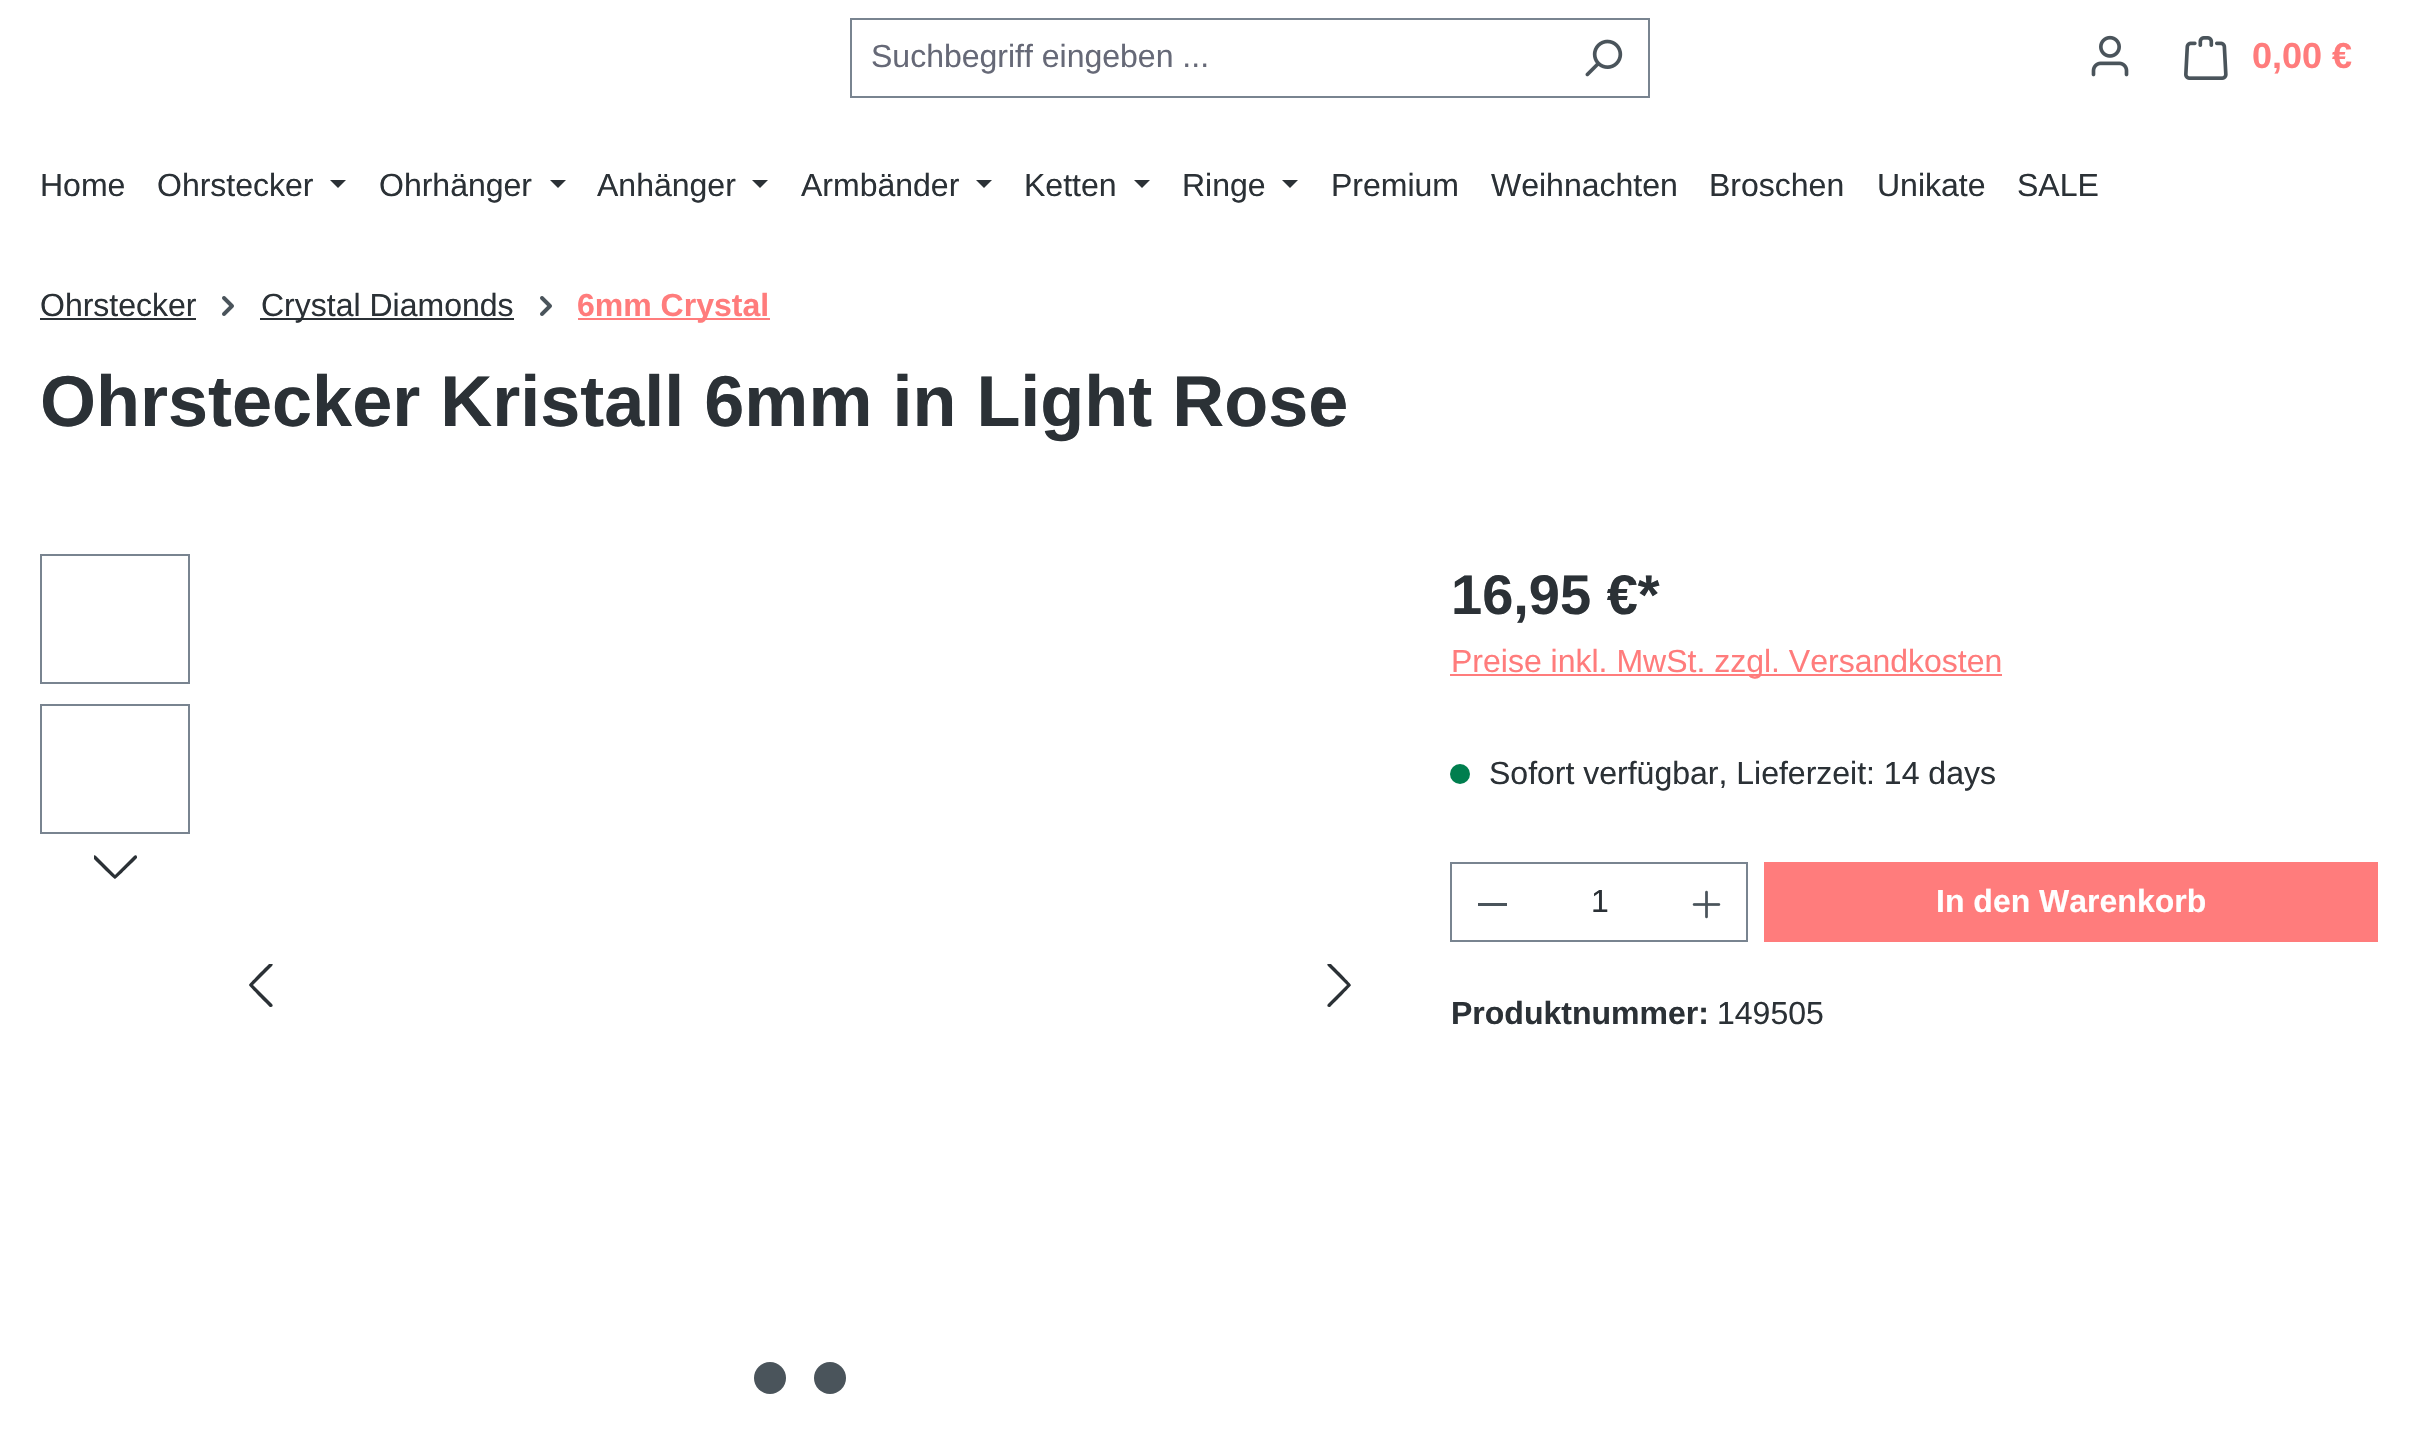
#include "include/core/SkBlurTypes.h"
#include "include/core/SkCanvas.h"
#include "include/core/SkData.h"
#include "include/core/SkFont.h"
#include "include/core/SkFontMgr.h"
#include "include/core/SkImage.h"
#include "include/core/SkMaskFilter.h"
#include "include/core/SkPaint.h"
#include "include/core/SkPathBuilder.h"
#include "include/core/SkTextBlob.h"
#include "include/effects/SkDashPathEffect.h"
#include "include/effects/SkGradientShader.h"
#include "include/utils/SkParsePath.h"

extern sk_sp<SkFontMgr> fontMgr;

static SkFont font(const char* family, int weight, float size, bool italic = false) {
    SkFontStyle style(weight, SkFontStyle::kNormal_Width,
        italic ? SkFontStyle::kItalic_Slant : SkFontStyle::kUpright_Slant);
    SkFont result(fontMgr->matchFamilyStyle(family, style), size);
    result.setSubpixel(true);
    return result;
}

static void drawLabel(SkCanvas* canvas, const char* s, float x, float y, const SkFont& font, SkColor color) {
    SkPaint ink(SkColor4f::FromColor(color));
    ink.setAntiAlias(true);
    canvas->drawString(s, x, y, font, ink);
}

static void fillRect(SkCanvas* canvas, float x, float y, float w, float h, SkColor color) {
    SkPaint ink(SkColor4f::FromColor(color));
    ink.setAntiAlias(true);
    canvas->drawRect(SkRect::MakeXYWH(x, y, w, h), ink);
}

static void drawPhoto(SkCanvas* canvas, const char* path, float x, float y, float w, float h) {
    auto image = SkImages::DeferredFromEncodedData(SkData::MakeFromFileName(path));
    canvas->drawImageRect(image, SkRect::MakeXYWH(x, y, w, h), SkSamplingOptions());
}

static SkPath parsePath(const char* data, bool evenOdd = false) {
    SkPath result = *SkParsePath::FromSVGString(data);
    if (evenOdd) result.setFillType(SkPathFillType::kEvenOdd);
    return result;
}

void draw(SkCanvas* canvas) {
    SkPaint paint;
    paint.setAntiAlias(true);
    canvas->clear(0xFFFFFFFF);
    fillRect(canvas, 850, 18, 800, 2, 0xFF798490);
    fillRect(canvas, 850, 96, 708, 2, 0xFF798490);
    fillRect(canvas, 850, 18, 2, 80, 0xFF798490);
    SkFont font1 = font("Liberation Sans", 400, 32);
    drawLabel(canvas, "Suchbegriff eingeben ...", 871, 67, font1, 0xFF666977);
    fillRect(canvas, 1648, 18, 2, 80, 0xFF798490);
    fillRect(canvas, 1556, 96, 94, 2, 0xFF798490);
    drawPhoto(canvas, "assets/img1.png", 1585, 39, 38, 38);
    drawPhoto(canvas, "assets/img2.png", 2091, 35, 38, 42);
    drawPhoto(canvas, "assets/img3.png", 2184, 36, 44, 44);
    SkFont font2 = font("Liberation Sans", 700, 36);
    drawLabel(canvas, "0,00 €", 2252, 68, font2, 0xFFFF7C7C);
    drawLabel(canvas, "Home", 40, 196, font1, 0xFF2B3136);
    drawLabel(canvas, "Ohrstecker", 157, 196, font1, 0xFF2B3136);
    paint.setColor(0xFF2B3136);
    canvas->drawPath(parsePath("M330 180H346L338 188Z"), paint);
    drawLabel(canvas, "Ohrhänger", 379, 196, font1, 0xFF2B3136);
    canvas->drawPath(parsePath("M550 180H566L558 188Z"), paint);
    drawLabel(canvas, "Anhänger", 597, 196, font1, 0xFF2B3136);
    canvas->drawPath(parsePath("M752 180H768L760 188Z"), paint);
    drawLabel(canvas, "Armbänder", 801, 196, font1, 0xFF2B3136);
    canvas->drawPath(parsePath("M976 180H992L984 188Z"), paint);
    drawLabel(canvas, "Ketten", 1024, 196, font1, 0xFF2B3136);
    canvas->drawPath(parsePath("M1134 180H1150L1142 188Z"), paint);
    drawLabel(canvas, "Ringe", 1182, 196, font1, 0xFF2B3136);
    canvas->drawPath(parsePath("M1282 180H1298L1290 188Z"), paint);
    drawLabel(canvas, "Premium", 1331, 196, font1, 0xFF2B3136);
    drawLabel(canvas, "Weihnachten", 1491, 196, font1, 0xFF2B3136);
    drawLabel(canvas, "Broschen", 1709, 196, font1, 0xFF2B3136);
    drawLabel(canvas, "Unikate", 1877, 196, font1, 0xFF2B3136);
    drawLabel(canvas, "SALE", 2017, 196, font1, 0xFF2B3136);
    drawLabel(canvas, "Ohrstecker", 40, 316, font1, 0xFF2B3136);
    fillRect(canvas, 40, 318, 156, 2, 0xFF2B3136);
    drawPhoto(canvas, "assets/img4.png", 222, 296, 12, 20);
    fillRect(canvas, 260, 318, 254, 2, 0xFF2B3136);
    drawLabel(canvas, "Crystal Diamonds", 261, 316, font1, 0xFF2B3136);
    drawPhoto(canvas, "assets/img4.png", 540, 296, 12, 20);
    fillRect(canvas, 578, 318, 192, 2, 0xFFFF7C7C);
    SkFont font3 = font("Liberation Sans", 700, 32);
    drawLabel(canvas, "6mm Crystal", 577, 316, font3, 0xFFFF7C7C);
    SkFont font4 = font("Liberation Sans", 700, 72);
    drawLabel(canvas, "Ohrstecker Kristall 6mm in Light Rose", 40, 426, font4, 0xFF2B3136);
    paint.setStroke(true);
    paint.setStrokeWidth(2);
    paint.setColor(0xFF798490);
    canvas->drawRect(SkRect::MakeXYWH(41, 555, 148, 128), paint);
    canvas->drawRect(SkRect::MakeXYWH(41, 705, 148, 128), paint);
    canvas->save();
    canvas->clipRect(SkRect::MakeXYWH(94, 846, 44, 44));
    paint.setStroke(false);
    paint.setColor(0xFF2B3136);
    canvas->drawPath(parsePath("M115 875L134 856C135 855 137 855 137 857V858C135 860 116 879 115 879C114 879 95 860 93 858V857C93 855 95 855 96 856Z", true), paint);
    canvas->restore();
    canvas->save();
    canvas->clipRect(SkRect::MakeXYWH(238, 964, 44, 44));
    canvas->drawPath(parsePath("M253 985L272 1004C273 1005 273 1007 271 1007H270C268 1005 249 986 249 985C249 984 268 965 270 963H271C273 963 273 965 272 966Z", true), paint);
    canvas->restore();
    canvas->save();
    canvas->clipRect(SkRect::MakeXYWH(1318, 964, 44, 44));
    canvas->drawPath(parsePath("M1347 985L1328 1004C1327 1005 1327 1007 1329 1007H1330C1332 1005 1351 986 1351 985C1351 984 1332 965 1330 963H1329C1327 963 1327 965 1328 966Z", true), paint);
    canvas->restore();
    paint.setColor(0xFF4A545B);
    canvas->drawCircle(770, 1378, 16, paint);
    canvas->drawCircle(830, 1378, 16, paint);
    SkFont font5 = font("Liberation Sans", 700, 56);
    drawLabel(canvas, "16,95 €*", 1451, 614, font5, 0xFF2B3136);
    fillRect(canvas, 1450, 674, 552, 2, 0xFFFF7C7C);
    drawLabel(canvas, "Preise inkl. MwSt. zzgl. Versandkosten", 1451, 672, font1, 0xFFFF7C7C);
    paint.setColor(0xFF007E4E);
    canvas->drawCircle(1460, 774, 10, paint);
    drawLabel(canvas, "Sofort verfügbar, Lieferzeit: 14 days", 1489, 784, font1, 0xFF2B3136);
    fillRect(canvas, 1450, 862, 298, 2, 0xFF798490);
    fillRect(canvas, 1450, 940, 218, 2, 0xFF798490);
    fillRect(canvas, 1450, 862, 2, 80, 0xFF798490);
    fillRect(canvas, 1478, 903, 29, 3, 0xFF4A545B);
    drawLabel(canvas, "1", 1591, 912, font1, 0xFF2B3136);
    fillRect(canvas, 1746, 862, 2, 80, 0xFF798490);
    fillRect(canvas, 1666, 940, 82, 2, 0xFF798490);
    drawPhoto(canvas, "assets/img5.png", 1692, 890, 29, 29);
    fillRect(canvas, 1764, 862, 614, 80, 0xFFFF7C7C);
    drawLabel(canvas, "In den Warenkorb", 1936, 912, font3, 0xFFFFFFFF);
    drawLabel(canvas, "Produktnummer:", 1451, 1024, font3, 0xFF2B3136);
    drawLabel(canvas, "149505", 1717, 1024, font1, 0xFF2B3136);
}
